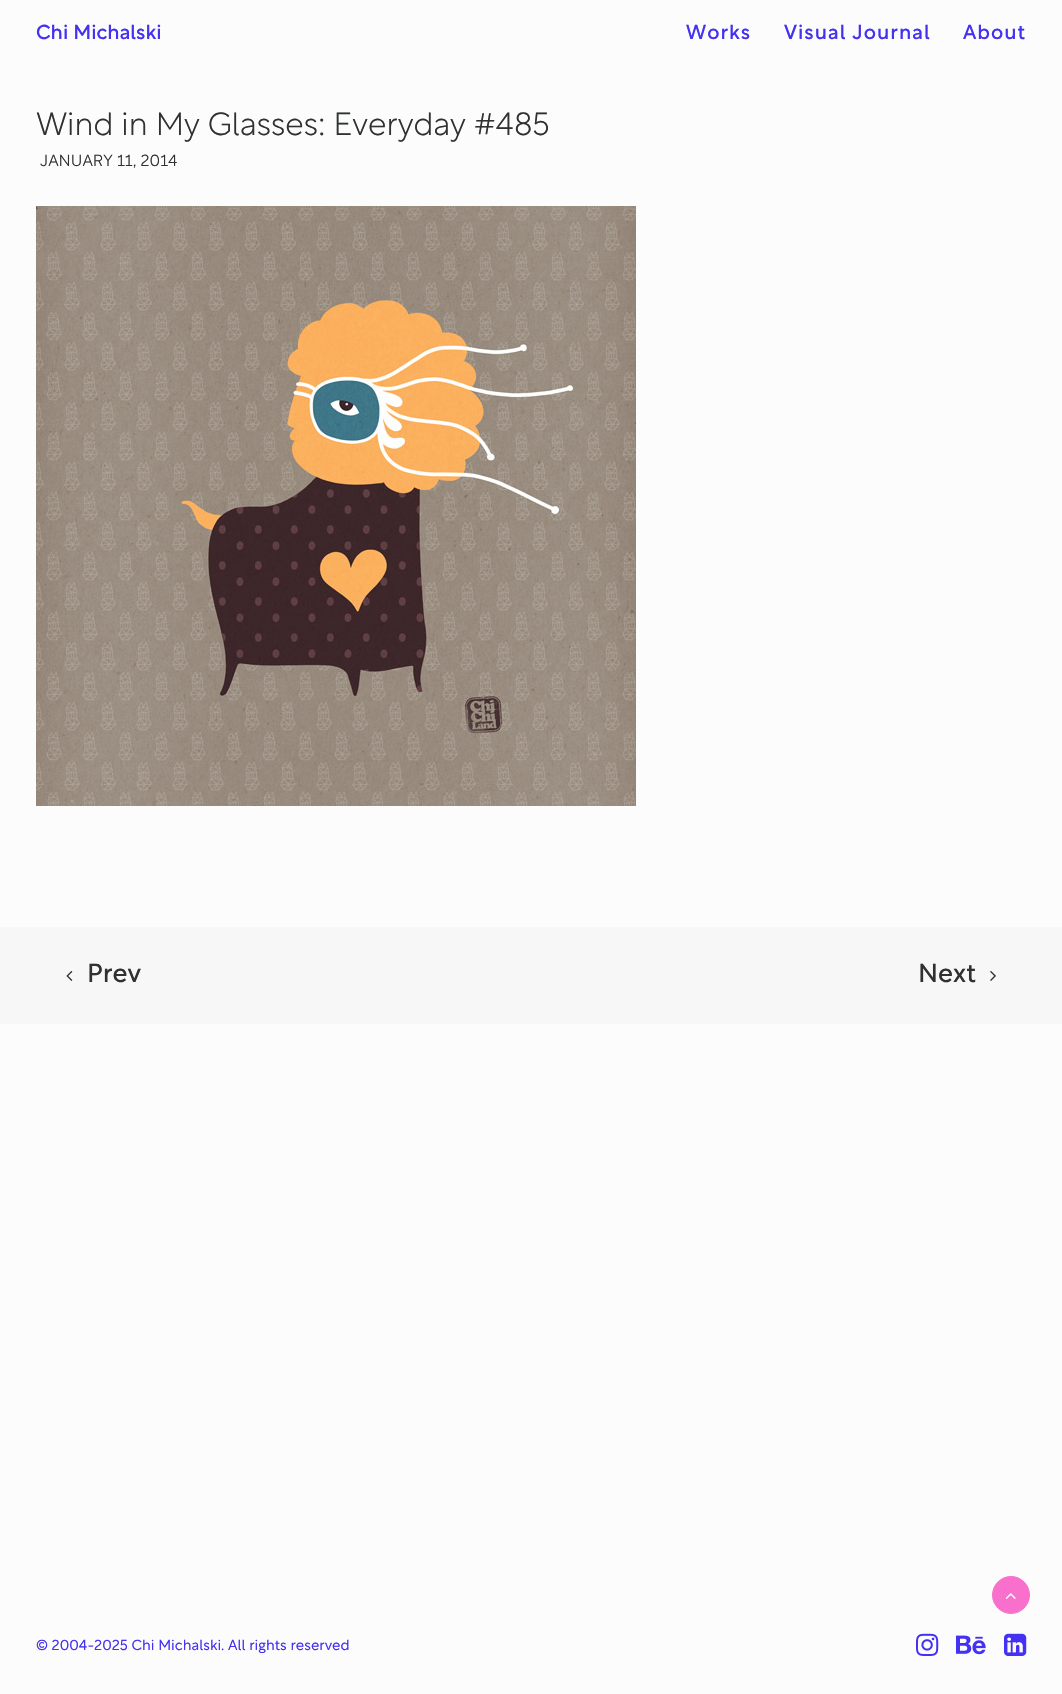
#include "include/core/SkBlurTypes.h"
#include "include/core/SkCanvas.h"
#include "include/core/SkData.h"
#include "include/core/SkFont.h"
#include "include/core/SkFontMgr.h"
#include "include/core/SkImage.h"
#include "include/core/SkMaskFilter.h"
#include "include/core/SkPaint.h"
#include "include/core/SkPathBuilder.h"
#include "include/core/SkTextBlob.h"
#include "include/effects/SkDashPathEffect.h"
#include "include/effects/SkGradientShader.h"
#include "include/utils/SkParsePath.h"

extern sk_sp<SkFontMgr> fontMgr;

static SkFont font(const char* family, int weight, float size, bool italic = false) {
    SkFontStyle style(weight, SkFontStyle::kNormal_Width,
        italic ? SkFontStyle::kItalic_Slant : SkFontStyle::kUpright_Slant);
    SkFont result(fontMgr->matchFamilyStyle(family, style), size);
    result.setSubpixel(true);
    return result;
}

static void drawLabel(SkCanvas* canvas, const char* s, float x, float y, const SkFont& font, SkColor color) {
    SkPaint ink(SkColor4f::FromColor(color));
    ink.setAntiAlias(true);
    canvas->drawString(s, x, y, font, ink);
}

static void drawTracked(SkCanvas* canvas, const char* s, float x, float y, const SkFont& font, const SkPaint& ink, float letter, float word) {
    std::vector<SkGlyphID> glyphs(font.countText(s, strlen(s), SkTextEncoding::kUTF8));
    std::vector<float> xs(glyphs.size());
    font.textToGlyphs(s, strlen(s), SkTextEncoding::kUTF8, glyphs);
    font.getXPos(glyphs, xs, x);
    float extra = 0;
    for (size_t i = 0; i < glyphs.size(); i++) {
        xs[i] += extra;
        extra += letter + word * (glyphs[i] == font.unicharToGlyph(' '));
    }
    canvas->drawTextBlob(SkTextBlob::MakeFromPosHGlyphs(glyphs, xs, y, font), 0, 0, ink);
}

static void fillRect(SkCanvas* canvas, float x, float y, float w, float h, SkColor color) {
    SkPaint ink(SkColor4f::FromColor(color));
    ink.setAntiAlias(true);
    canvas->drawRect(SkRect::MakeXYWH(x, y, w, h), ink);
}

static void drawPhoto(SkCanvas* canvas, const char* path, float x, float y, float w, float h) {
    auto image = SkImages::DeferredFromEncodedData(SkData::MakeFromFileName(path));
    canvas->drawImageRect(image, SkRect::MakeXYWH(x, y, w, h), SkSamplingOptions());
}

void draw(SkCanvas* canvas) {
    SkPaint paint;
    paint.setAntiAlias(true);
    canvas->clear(0xFFFCFCFC);
    SkFont font1 = font("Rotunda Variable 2", 400, 20);
    drawLabel(canvas, "Chi Michalski", 36, 39, font1, 0xFF4431F1);
    paint.setColor(0xFF4431F1);
    drawTracked(canvas, "Works", 686, 39, font1, paint, 1, 0);
    drawTracked(canvas, "Visual Journal", 784, 39, font1, paint, 1, 0);
    drawTracked(canvas, "About", 963, 39, font1, paint, 1, 0);
    SkFont font2 = font("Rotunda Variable", 200, 32);
    paint.setColor(0xFF303133);
    drawTracked(canvas, "Wind in My Glasses: Everyday #485", 36, 135, font2, paint, -0.5f, 0);
    SkFont font3 = font("Rotunda Variable 2", 300, 16);
    drawLabel(canvas, "JANUARY 11, 2014", 40, 166, font3, 0xFF303133);
    drawPhoto(canvas, "assets/img1.png", 36, 206, 600, 600);
    fillRect(canvas, 0, 927, 1062, 97, 0xFFF7F7F7);
    drawPhoto(canvas, "assets/img2.png", 66, 970, 7, 11);
    SkFont font4 = font("Rotunda Variable", 400, 26);
    drawLabel(canvas, "Prev", 87, 982, font4, 0xFF303133);
    drawLabel(canvas, "Next", 918, 982, font4, 0xFF303133);
    drawPhoto(canvas, "assets/img3.png", 990, 971, 6, 10);
    SkFont font5 = font("Rotunda Variable", 300, 14.4f);
    drawLabel(canvas, "© 2004-2025 Chi Michalski. All rights reserved", 36, 1650, font5, 0xFF4431F1);
    drawPhoto(canvas, "assets/img4.png", 916, 1633, 23, 23);
    drawPhoto(canvas, "assets/img5.png", 956, 1635, 30, 20);
    drawPhoto(canvas, "assets/img6.png", 1004, 1633, 23, 23);
    paint.setColor(0xFFF970CC);
    canvas->drawCircle(1011, 1595, 18.5f, paint);
    paint.setStroke(true);
    paint.setStrokeWidth(1);
    canvas->drawCircle(1011, 1595, 18.5f, paint);
    drawPhoto(canvas, "assets/img7.png", 1005, 1593, 11, 6);
}
